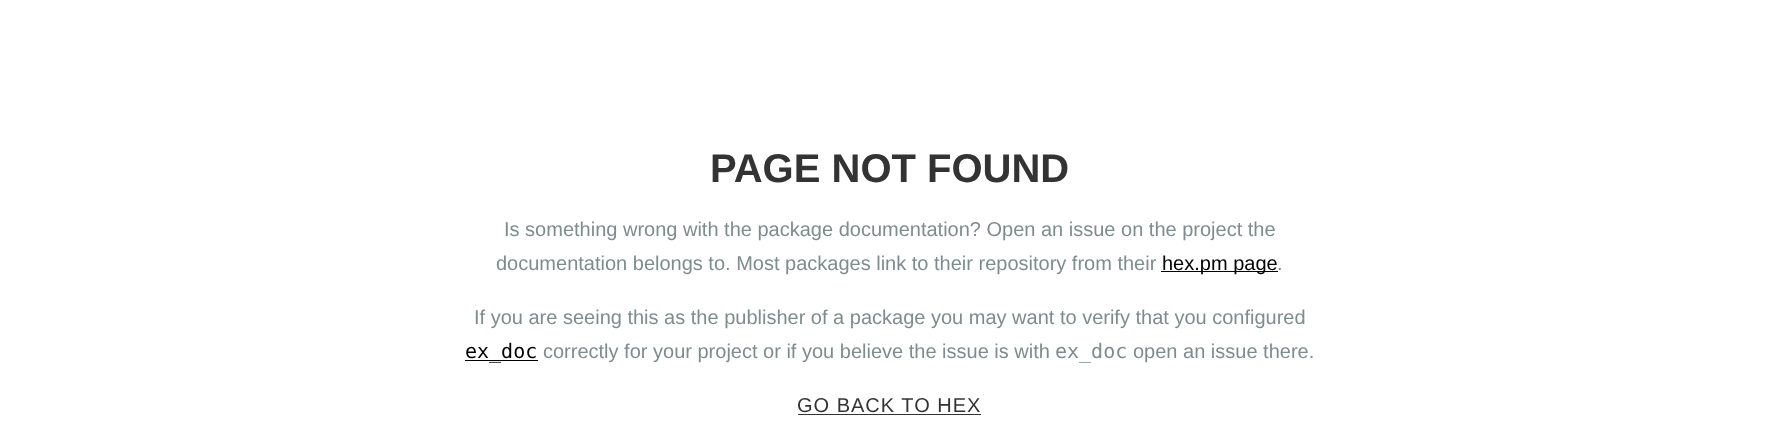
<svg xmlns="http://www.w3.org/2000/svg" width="1778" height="442">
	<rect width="100%" height="100%" fill="#FFFFFF" />
	<text x="710" y="182" font-family="Liberation Sans" font-size="40" font-weight="700" fill="#333333">PAGE NOT FOUND</text>
	<g font-family="Liberation Sans" font-size="20" fill="#7F8C8D">
		<text x="504" y="236">Is something wrong with the package documentation? Open an issue on the project the</text>
		<text x="496" y="270">documentation belongs to. Most packages link to their repository from their</text>
	</g>
	<rect x="1161" y="271" width="117" height="1" fill="#000000" />
	<text x="1162" y="270" font-family="Liberation Sans" font-size="20" fill="#000000">hex.pm page</text>
	<g font-family="Liberation Sans" font-size="20" fill="#7F8C8D">
		<text x="1277" y="270">.</text>
		<text x="474" y="324">If you are seeing this as the publisher of a package you may want to verify that you configured</text>
	</g>
	<rect x="465" y="360" width="73" height="1" fill="#000000" />
	<text x="465" y="358" font-family="DejaVu Sans Mono" font-size="20" fill="#000000">ex_doc</text>
	<text x="543" y="358" font-family="Liberation Sans" font-size="20" fill="#7F8C8D">correctly for your project or if you believe the issue is with</text>
	<text x="1055" y="358" font-family="DejaVu Sans Mono" font-size="20" fill="#7F8C8D">ex_doc</text>
	<text x="1133" y="358" font-family="Liberation Sans" font-size="20" fill="#7F8C8D">open an issue there.</text>
	<text x="797" y="412" font-family="Liberation Sans" font-size="20" letter-spacing="1" fill="#333333">GO BACK TO HEX</text>
	<rect x="798" y="414" width="183" height="1" fill="#333333" />
</svg>
